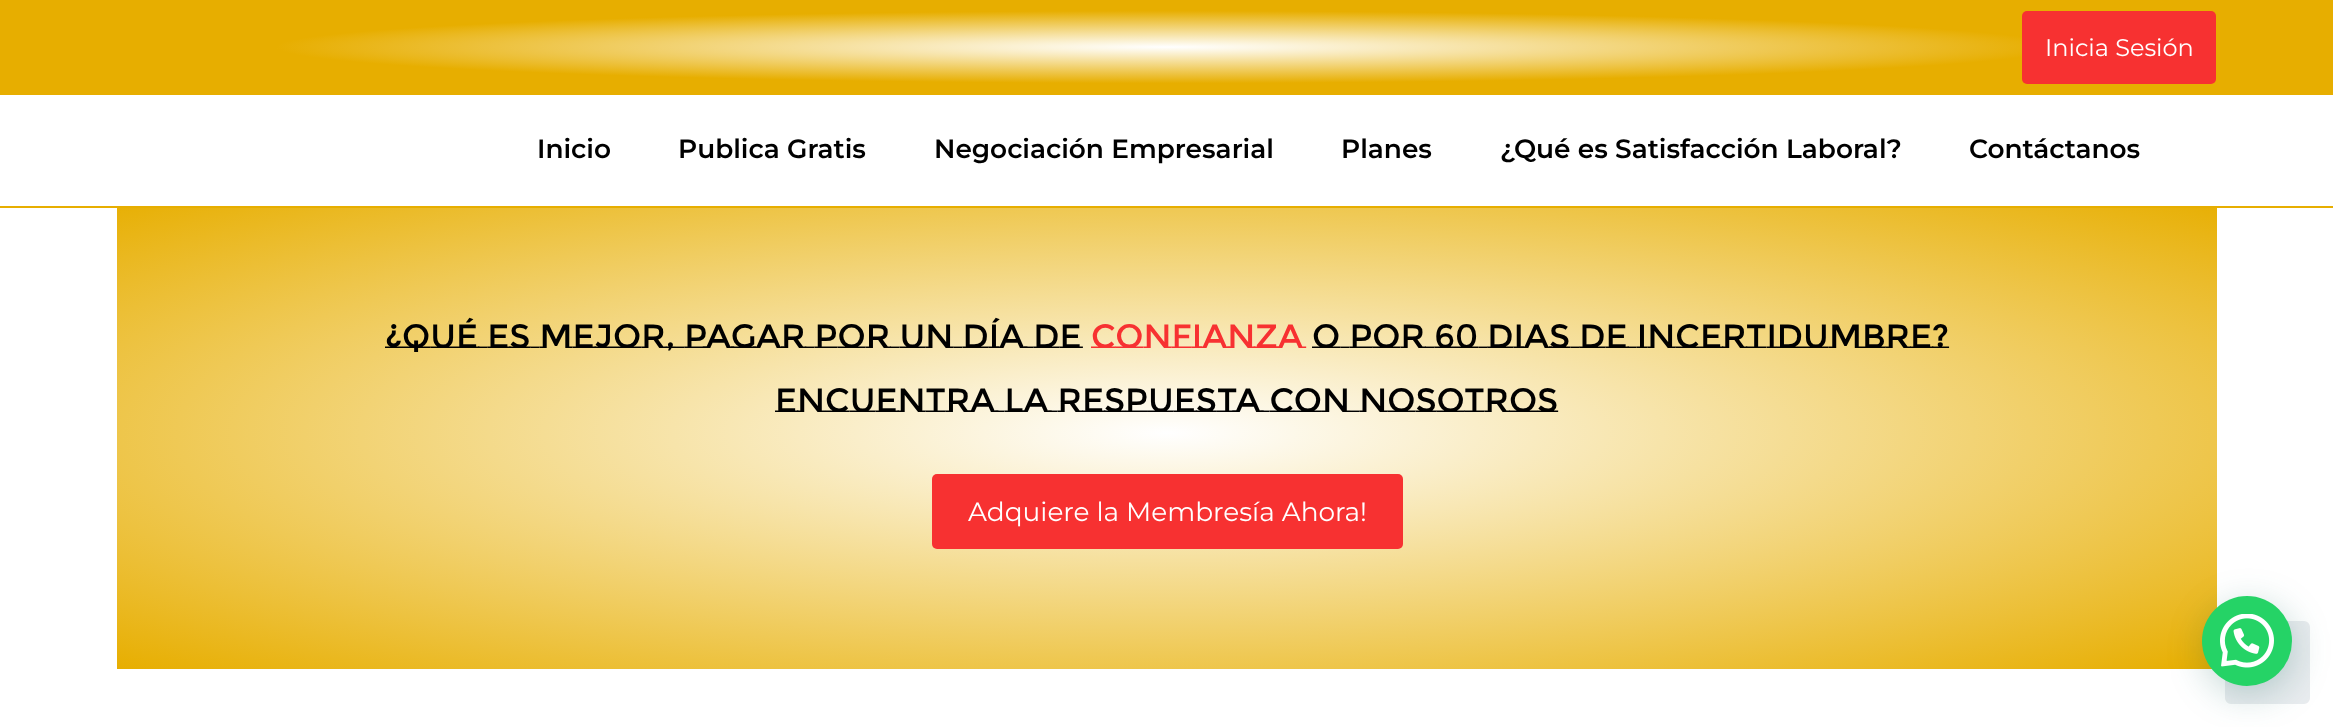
<svg xmlns="http://www.w3.org/2000/svg" width="2333" height="727">
	<defs>
		<radialGradient id="g1" gradientUnits="userSpaceOnUse" cx="0" cy="0" r="1" gradientTransform="matrix(1650 0 0 67 1167 47)"><stop offset="0" stop-color="#FFFFFF" /><stop offset="0.54" stop-color="#E7AE00" /></radialGradient>
		<radialGradient id="g2" gradientUnits="userSpaceOnUse" cx="0" cy="0" r="1" gradientTransform="matrix(1485 0 0 334 1167 433)"><stop offset="0" stop-color="#FFFFFF" /><stop offset="1" stop-color="#E7AE00" /></radialGradient>
	</defs>
	<rect width="100%" height="100%" fill="#FFFFFF" />
	<rect x="0" y="0" width="2333" height="95" fill="url(#g1)" />
	<rect x="2022" y="11" width="194" height="73" rx="5" fill="#F73131" />
	<text x="2045" y="56" font-family="Montserrat" font-size="24" font-weight="100" fill="#FFFFFF">Inicia Sesión</text>
	<rect x="0" y="206" width="2333" height="2" fill="#E7AE00" />
	<g font-family="Montserrat" font-size="26.4" font-weight="600" fill="#000000">
		<text x="537" y="158">Inicio</text>
		<text x="678" y="158">Publica Gratis</text>
		<text x="934" y="158">Negociación Empresarial</text>
		<text x="1341" y="158">Planes</text>
		<text x="1500" y="158">¿Qué es Satisfacción Laboral?</text>
		<text x="1969" y="158">Contáctanos</text>
	</g>
	<rect x="117" y="208" width="2100" height="461" fill="url(#g2)" />
	<text x="385" y="348" font-family="Montserrat Subrayada" font-size="33.6" fill="#000000">¿QUÉ ES MEJOR, PAGAR POR UN DÍA DE</text>
	<text x="1091" y="348" font-family="Montserrat Subrayada" font-size="33.6" fill="#F73131">CONFIANZA</text>
	<g font-family="Montserrat Subrayada" font-size="33.6" fill="#000000">
		<text x="1312" y="348">O POR 60 DIAS DE INCERTIDUMBRE?</text>
		<text x="775" y="412">ENCUENTRA LA RESPUESTA CON NOSOTROS</text>
	</g>
	<rect x="932" y="474" width="471" height="75" rx="5" fill="#F73131" />
	<text x="968" y="521" font-family="Montserrat" font-size="26.4" font-weight="100" fill="#FFFFFF">Adquiere la Membresía Ahora!</text>
	<rect x="2226" y="622" width="83" height="81" rx="5" fill="#E9ECEF" stroke="#E9ECEF" stroke-width="2" />
	<rect x="2204" y="605" width="90" height="90" rx="45" fill="#075E54" fill-opacity="0.24" filter="blur(18px)" />
	<circle cx="2247" cy="641" r="45" fill="#25D366" />
	<image x="2220" y="614" width="54" height="54" href="assets/img1.png" />
</svg>
